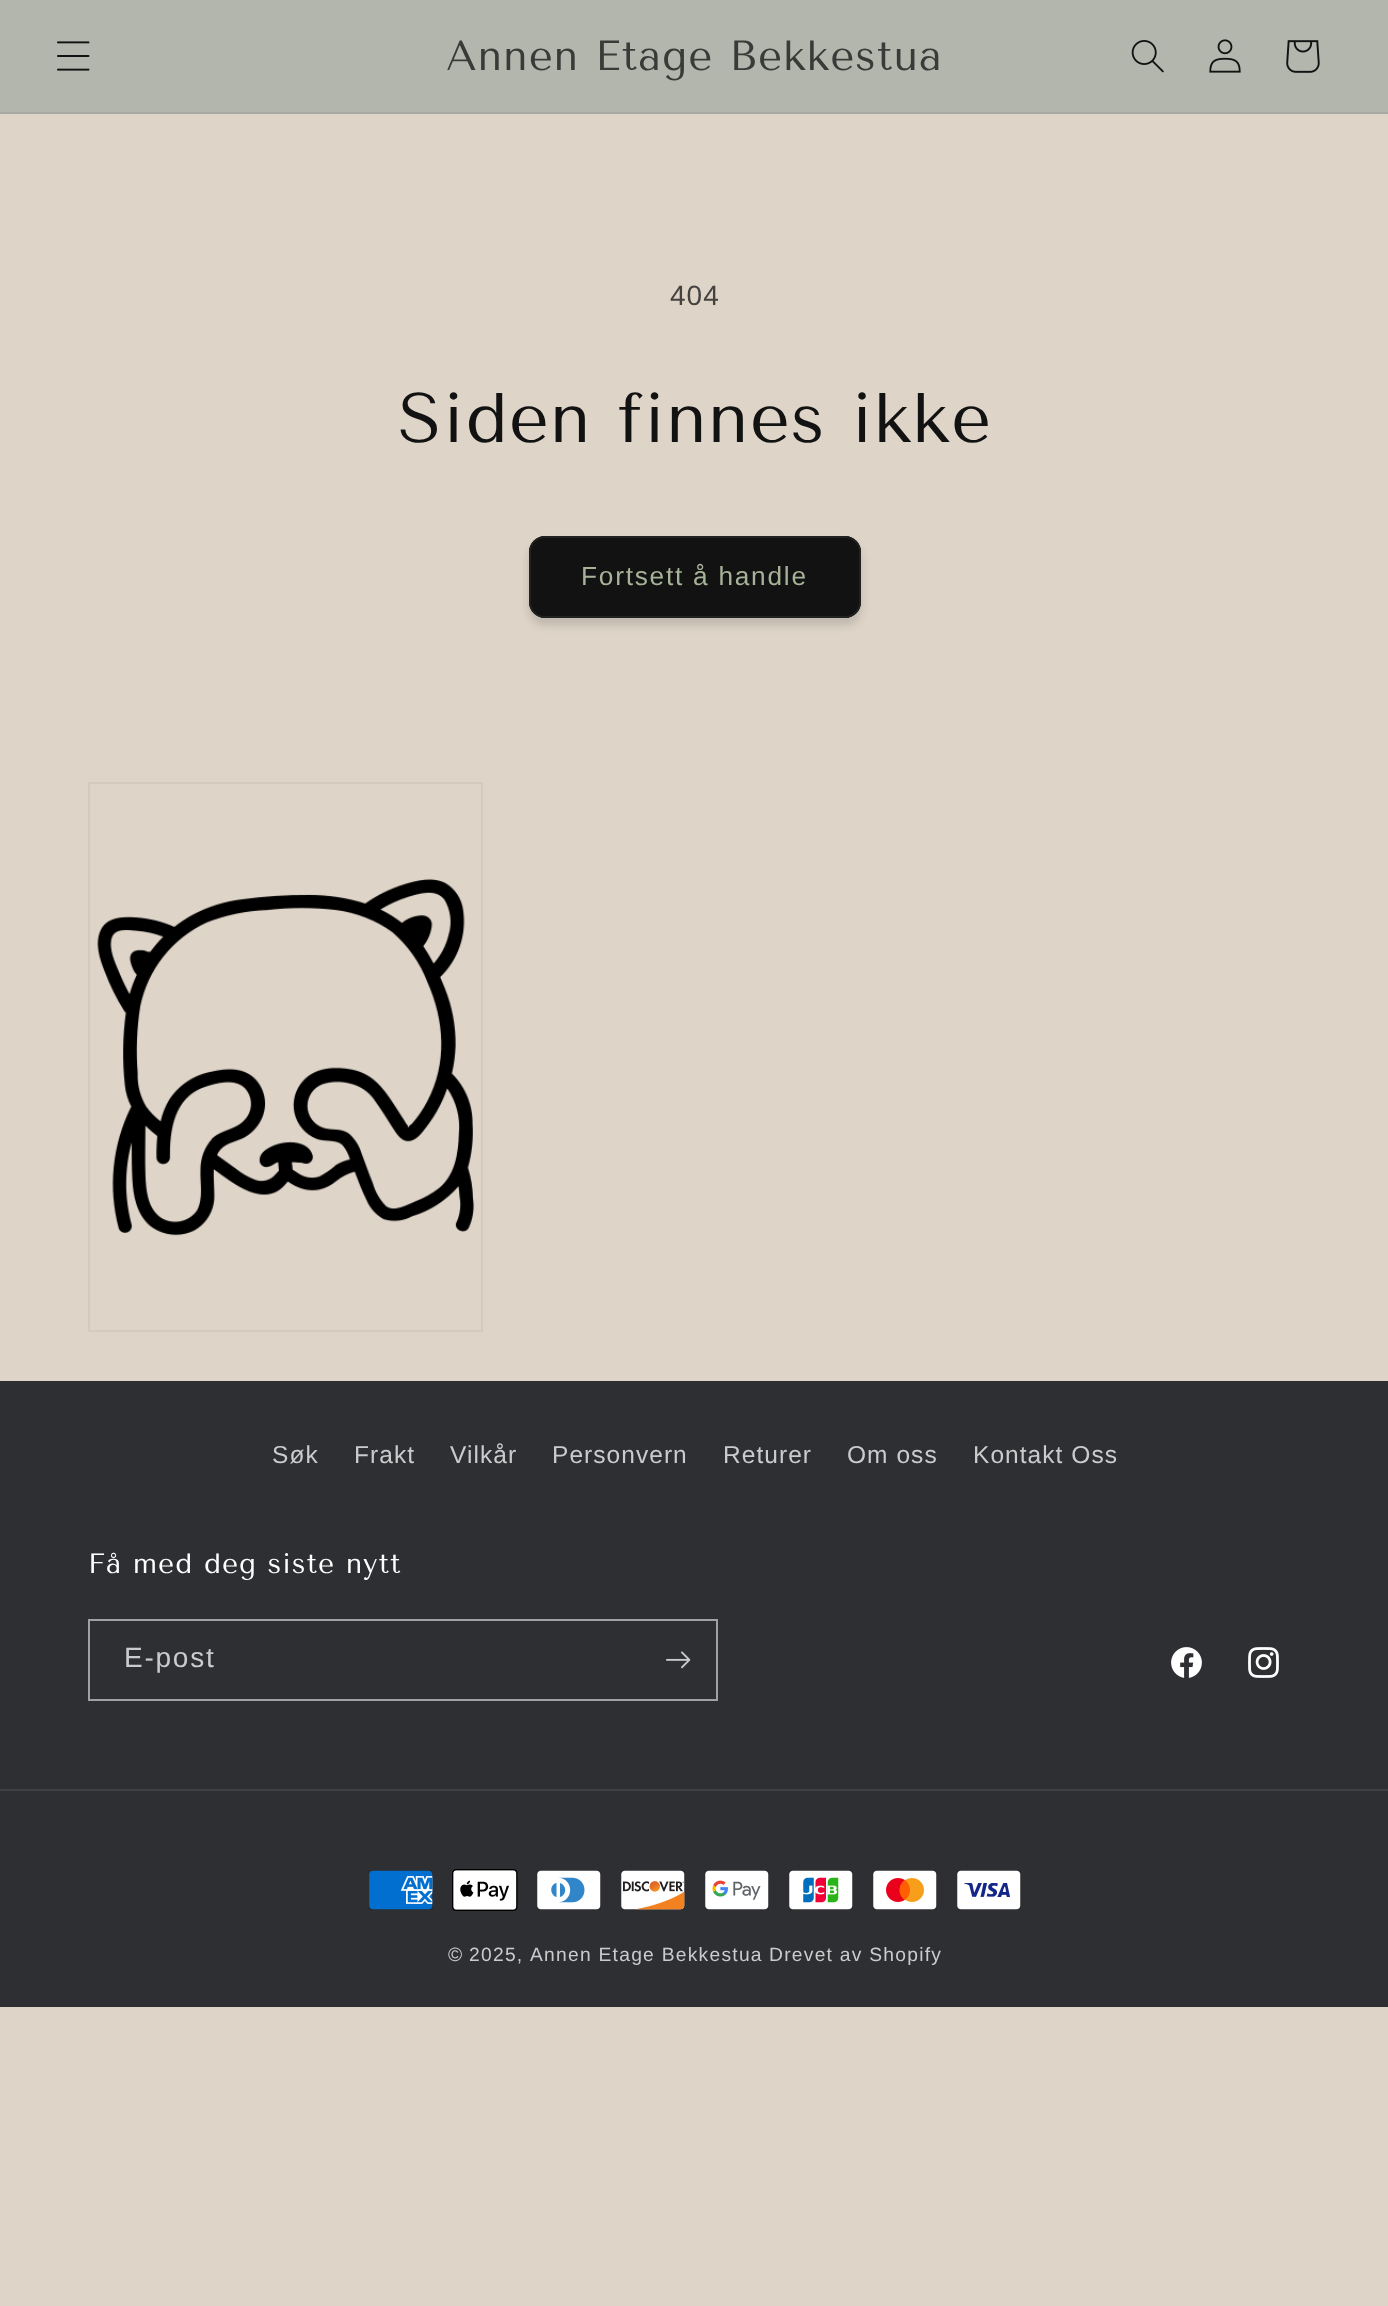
<svg xmlns="http://www.w3.org/2000/svg" width="1388" height="2306">
	<rect width="100%" height="100%" fill="#DED4C8" />
	<rect x="0" y="0" width="1388" height="112" fill="#B2B6AD" />
	<rect x="0" y="112" width="1388" height="2" fill="#A5A9A1" />
	<image x="57" y="41" width="33" height="30" href="assets/img1.png" />
	<text x="446" y="70" font-family="Tenor Sans" font-size="42" letter-spacing="1.05" fill="#3A3B39">Annen Etage Bekkestua</text>
	<image x="1131" y="40" width="33" height="33" href="assets/img2.png" />
	<image x="1209" y="39" width="32" height="34" href="assets/img3.png" />
	<image x="1286" y="40" width="34" height="33" href="assets/img4.png" />
	<text x="670" y="305" font-family="Liberation Sans" font-size="28" letter-spacing="1.05" fill="#454340">404</text>
	<text x="398" y="442" font-family="Tenor Sans" font-size="70" letter-spacing="1.05" fill="#121212">Siden finnes ikke</text>
	<rect x="529" y="543" width="332" height="82" rx="16" fill="#121212" fill-opacity="0.15" filter="blur(4.5px)" />
	<rect x="529" y="536" width="332" height="82" rx="16" fill="#121212" />
	<rect x="530" y="537" width="330" height="80" rx="15" fill="none" stroke="#121212" stroke-width="2" />
	<rect x="530" y="537" width="330" height="80" rx="15" fill="none" stroke="#A7B398" stroke-opacity="0.1" stroke-width="2" />
	<text x="581" y="585" font-family="Liberation Sans" font-size="26.25" letter-spacing="1.75" fill="#A7B398">Fortsett å handle</text>
	<rect x="89" y="783" width="393" height="548" fill="none" stroke="#D4CABF" stroke-width="2" />
	<image x="97" y="878" width="378" height="358" href="assets/img5.png" />
	<rect x="0" y="1381" width="1388" height="626" fill="#2E2F33" />
	<g font-family="Liberation Sans" font-size="24.5" letter-spacing="1.05" fill="#CBCBCC">
		<text x="272" y="1463">Søk</text>
		<text x="354" y="1463">Frakt</text>
		<text x="450" y="1463">Vilkår</text>
		<text x="552" y="1463">Personvern</text>
		<text x="723" y="1463">Returer</text>
		<text x="847" y="1463">Om oss</text>
		<text x="973" y="1463">Kontakt Oss</text>
	</g>
	<text x="88" y="1573" font-family="Tenor Sans" font-size="28" letter-spacing="1.05" fill="#FFFFFF">Få med deg siste nytt</text>
	<rect x="89" y="1620" width="628" height="80" fill="none" stroke="#A1A1A3" stroke-width="2" />
	<text x="124" y="1667" font-family="Liberation Sans" font-size="28" letter-spacing="1.75" fill="#CBCBCC">E-post</text>
	<image x="666" y="1651" width="25" height="18" href="assets/img6.png" />
	<image x="1171" y="1647" width="31" height="31" href="assets/img7.png" />
	<image x="1248" y="1647" width="31" height="31" href="assets/img8.png" />
	<rect x="0" y="1789" width="1388" height="2" fill="#3F4043" />
	<image x="369" y="1870" width="64" height="40" href="assets/img9.png" />
	<image x="452" y="1869" width="66" height="42" href="assets/img10.png" />
	<image x="537" y="1870" width="64" height="40" href="assets/img11.png" />
	<image x="621" y="1870" width="64" height="40" href="assets/img12.png" />
	<image x="705" y="1870" width="64" height="40" href="assets/img13.png" />
	<image x="789" y="1870" width="64" height="40" href="assets/img14.png" />
	<image x="873" y="1870" width="64" height="40" href="assets/img15.png" />
	<image x="957" y="1870" width="64" height="40" href="assets/img16.png" />
	<g font-family="Liberation Sans" font-size="19.25" letter-spacing="1.25" fill="#CBCBCC">
		<text x="448" y="1961" word-spacing="-1">© 2025,</text>
		<text x="530" y="1961">Annen Etage Bekkestua</text>
		<text x="769" y="1961">Drevet av Shopify</text>
	</g>
</svg>
